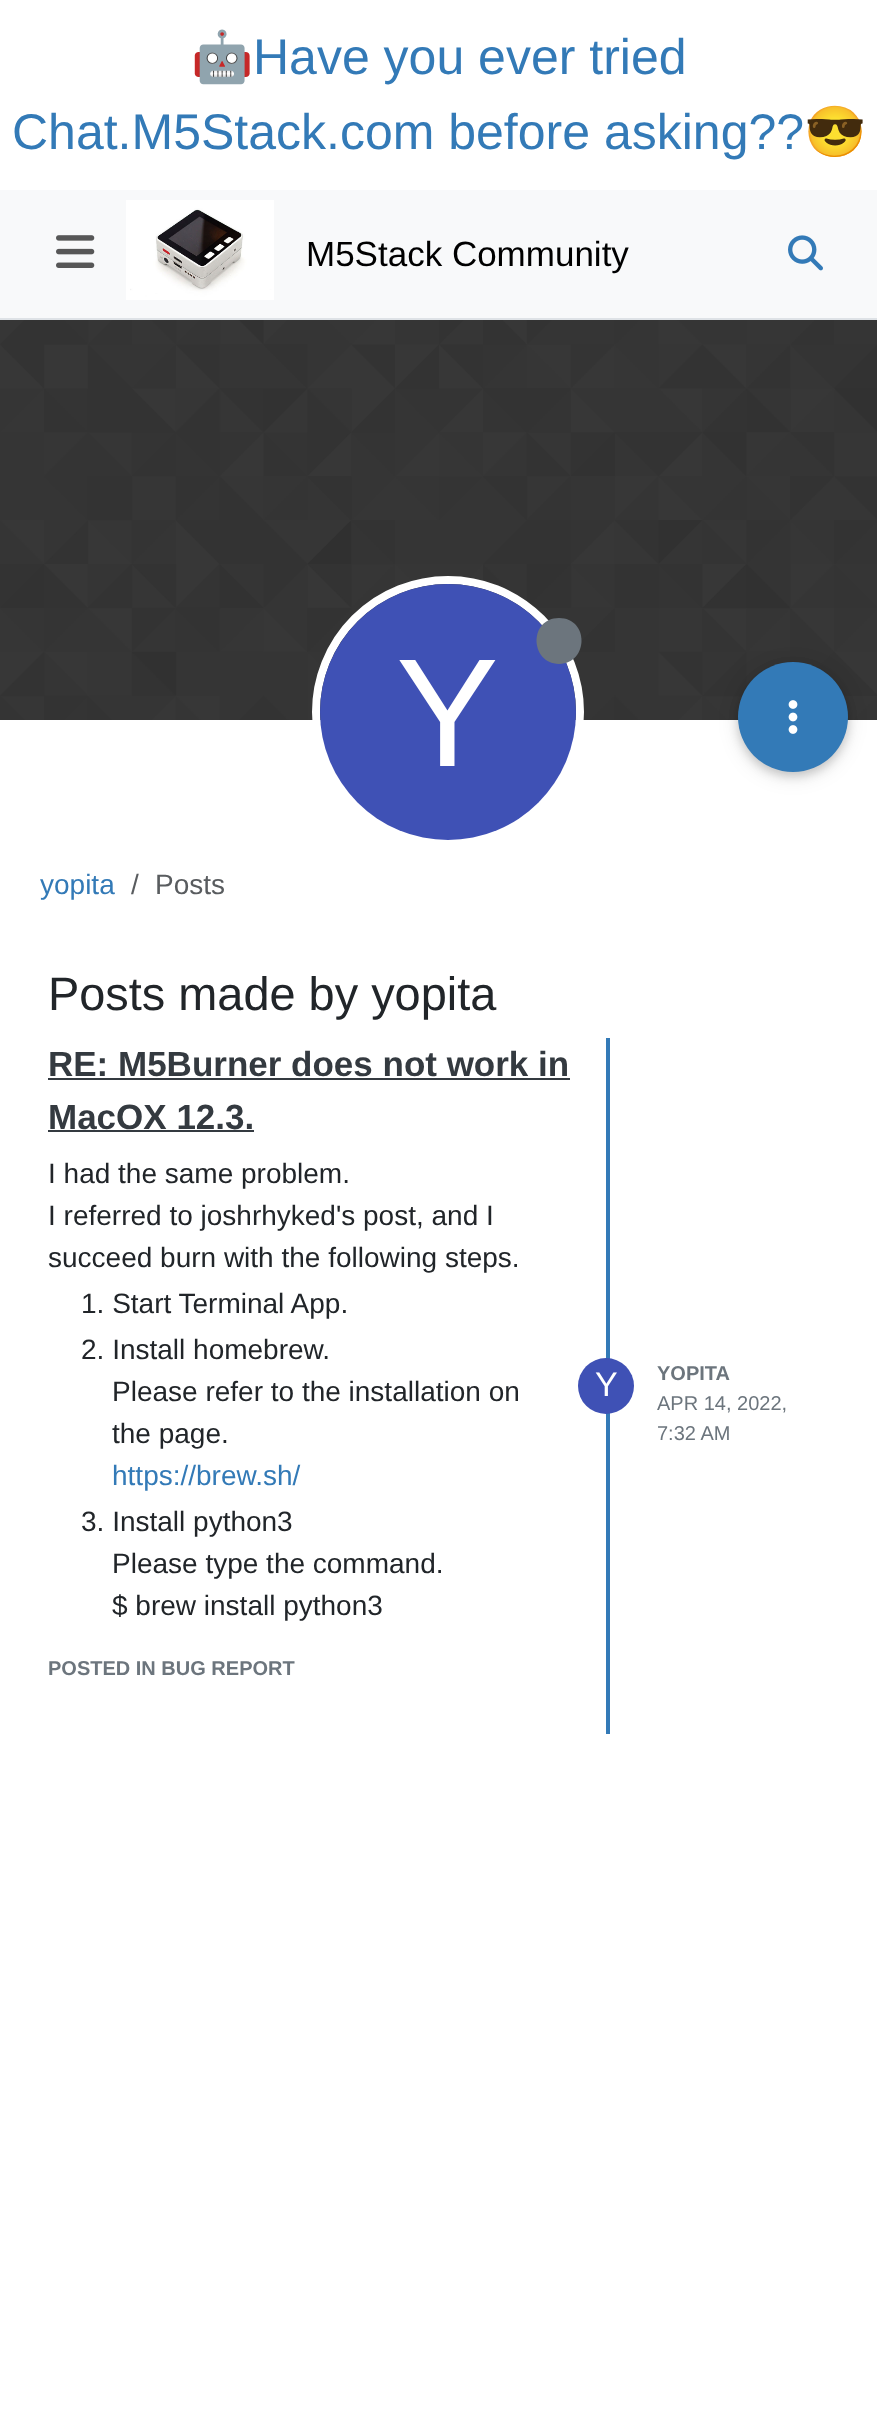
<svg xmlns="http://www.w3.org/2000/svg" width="877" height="2431">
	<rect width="100%" height="100%" fill="#FFFFFF" />
	<text x="191" y="74" font-family="Noto Color Emoji" font-size="50" fill="#337AB7">🤖</text>
	<g font-family="Liberation Sans" font-size="50" fill="#337AB7">
		<text x="253" y="74">Have you ever tried</text>
		<text x="12" y="149">Chat.M5Stack.com before asking??</text>
	</g>
	<text x="804" y="149" font-family="Noto Color Emoji" font-size="50" fill="#337AB7">😎</text>
	<rect x="0" y="190" width="877" height="128" fill="#F8F9FA" />
	<rect x="0" y="318" width="877" height="2" fill="#DEE2E6" />
	<image x="56" y="235" width="39" height="33" href="assets/img1.png" />
	<image x="126" y="200" width="148" height="100" href="assets/img2.png" />
	<text x="306" y="266" font-family="Liberation Sans" font-size="35" fill="#000000">M5Stack Community</text>
	<image x="788" y="235" width="35" height="36" href="assets/img3.png" />
	<image x="0" y="320" width="877" height="400" href="assets/img4.png" />
	<circle cx="448" cy="712" r="132" fill="none" stroke="#FFFFFF" stroke-width="8" />
	<circle cx="448" cy="712" r="128" fill="#3F51B5" />
	<path d="M559 664C589 663 589 618 559 618C529 618 529 663 559 664Z" fill="#6C757D" />
	<text x="396" y="766" font-family="Liberation Sans" font-size="154" fill="#FFFFFF">Y</text>
	<rect x="738" y="666" width="110" height="110" rx="55" fill="#000000" fill-opacity="0.12" filter="blur(10px)" />
	<rect x="738" y="666" width="110" height="110" rx="55" fill="#000000" fill-opacity="0.16" filter="blur(5px)" />
	<circle cx="793" cy="717" r="55" fill="#337AB7" />
	<image x="788" y="700" width="10" height="34" href="assets/img5.png" />
	<text x="40" y="894" font-family="Liberation Sans" font-size="28" fill="#337AB7">yopita</text>
	<g font-family="Liberation Sans" font-size="28" fill="#595C5F">
		<text x="131" y="894">/</text>
		<text x="155" y="894">Posts</text>
	</g>
	<text x="48" y="1010" font-family="Liberation Sans" font-size="46.9" fill="#212529">Posts made by yopita</text>
	<rect x="606" y="1038" width="4" height="696" fill="#337AB7" />
	<text x="48" y="1076" font-family="Liberation Sans" font-size="35" font-weight="700" fill="#343A40">RE: M5Burner does not work in</text>
	<rect x="48" y="1078" width="522" height="2" fill="#343A40" />
	<text x="48" y="1129" font-family="Liberation Sans" font-size="35" font-weight="700" fill="#343A40">MacOX 12.3.</text>
	<rect x="48" y="1130" width="206" height="2" fill="#343A40" />
	<g font-family="Liberation Sans" font-size="28" fill="#212529">
		<text x="48" y="1183">I had the same problem.</text>
		<text x="48" y="1225">I referred to joshrhyked's post, and I</text>
		<text x="48" y="1267">succeed burn with the following steps.</text>
		<text x="81" y="1313">1. Start Terminal App.</text>
		<text x="81" y="1359">2. Install homebrew.</text>
		<text x="112" y="1401">Please refer to the installation on</text>
		<text x="112" y="1443">the page.</text>
	</g>
	<text x="112" y="1485" font-family="Liberation Sans" font-size="28" fill="#337AB7">https://brew.sh/</text>
	<g font-family="Liberation Sans" font-size="28" fill="#212529">
		<text x="81" y="1531">3. Install python3</text>
		<text x="112" y="1573">Please type the command.</text>
		<text x="112" y="1615">$ brew install python3</text>
	</g>
	<circle cx="606" cy="1386" r="28" fill="#3F51B5" />
	<text x="595" y="1396" font-family="Liberation Sans" font-size="34" fill="#FFFFFF">Y</text>
	<text x="657" y="1380" font-family="Liberation Sans" font-size="20" font-weight="700" fill="#6C757D">YOPITA</text>
	<g font-family="Liberation Sans" font-size="20" fill="#6C757D">
		<text x="657" y="1410">APR 14, 2022,</text>
		<text x="657" y="1440">7:32 AM</text>
	</g>
	<text x="48" y="1675" font-family="Liberation Sans" font-size="20" font-weight="700" fill="#6C757D">POSTED IN BUG REPORT</text>
</svg>
